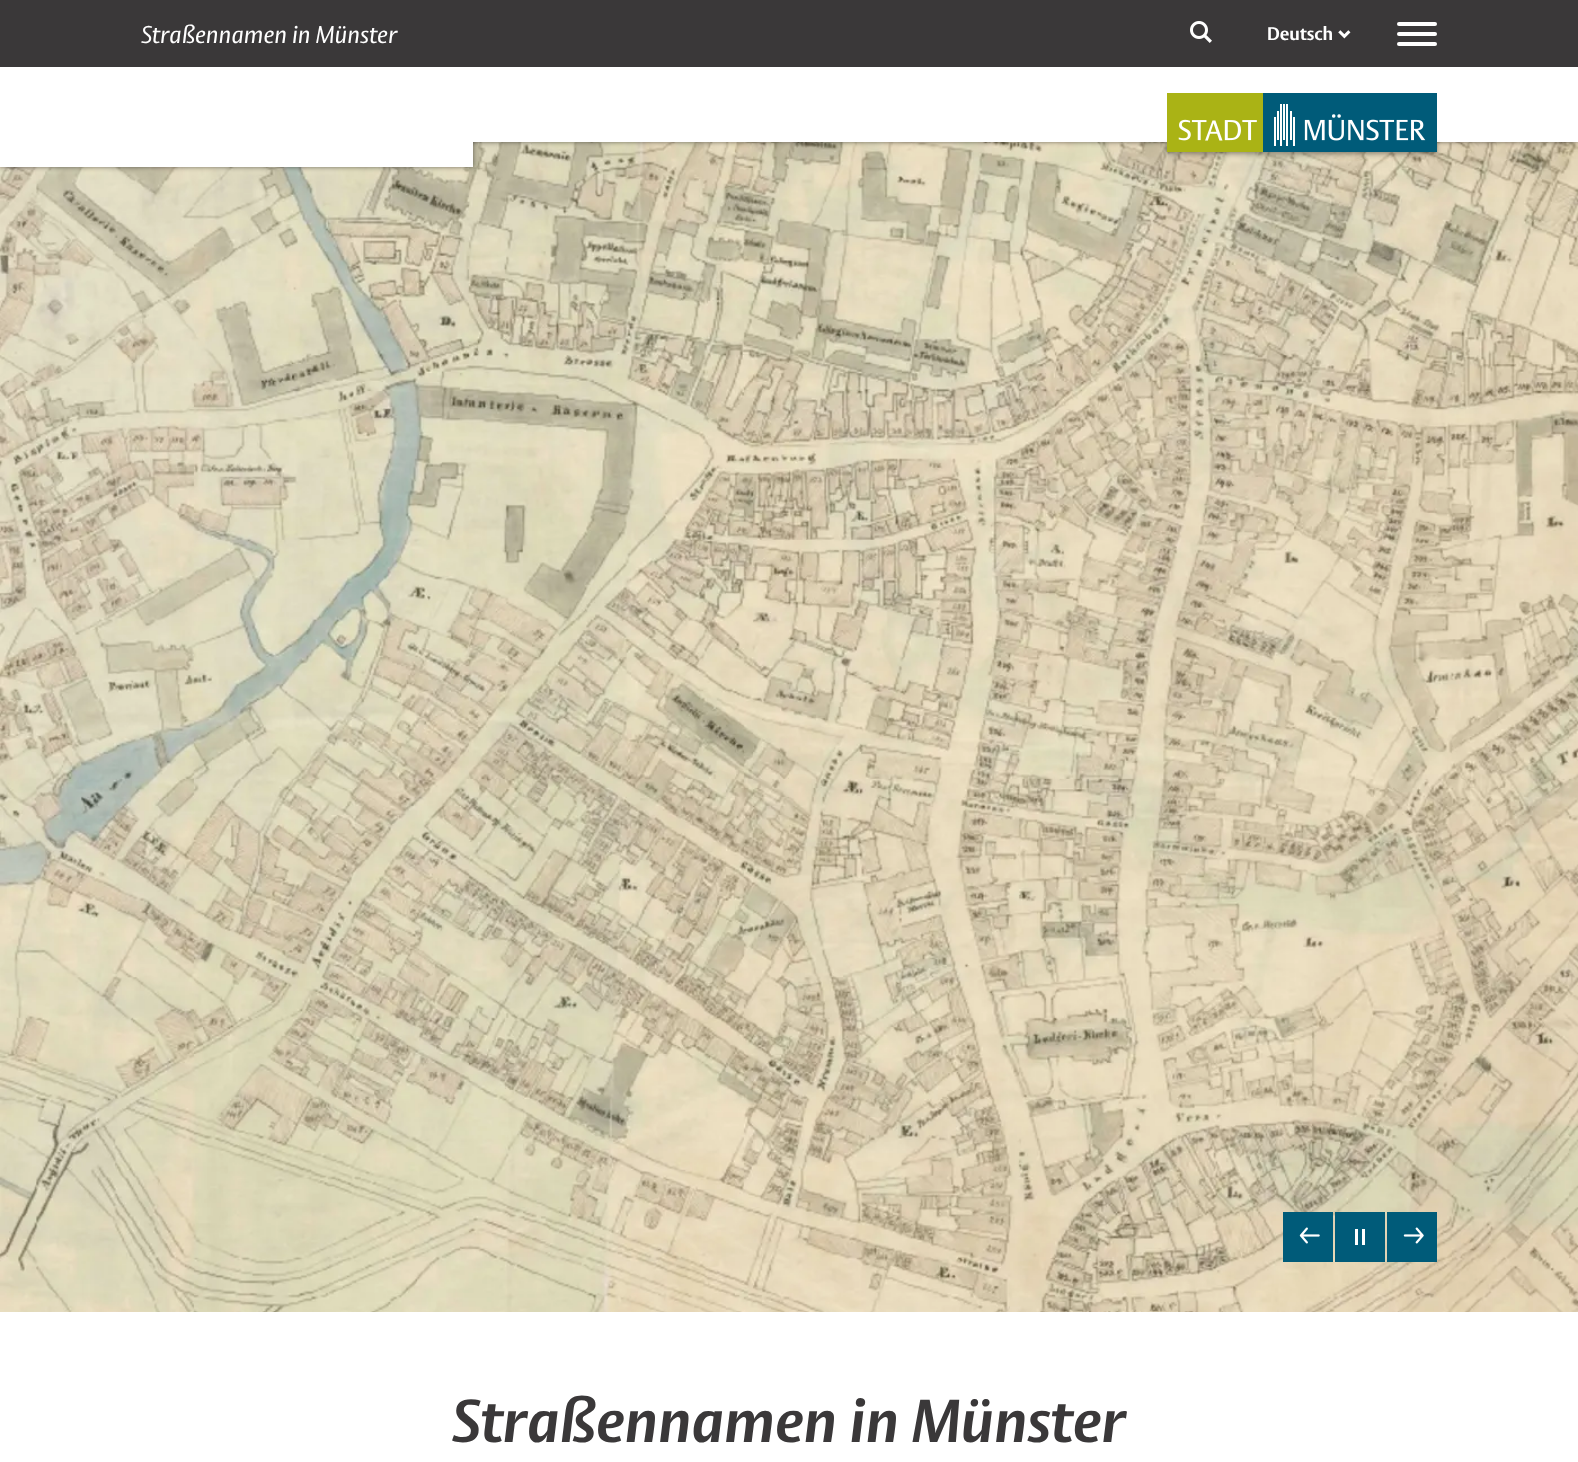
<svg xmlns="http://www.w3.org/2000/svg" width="1578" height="1462">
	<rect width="100%" height="100%" fill="#FFFFFF" />
	<image x="0" y="142" width="1578" height="1170" href="assets/img4.png" />
	<rect x="0" y="67" width="1578" height="75" fill="#000000" fill-opacity="0.5" filter="blur(2.5px)" />
	<rect x="0" y="67" width="473" height="100" fill="#000000" fill-opacity="0.5" filter="blur(2.5px)" />
	<rect x="0" y="0" width="1578" height="67" fill="#3A3839" />
	<text x="141" y="43" font-family="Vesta" font-size="24" font-style="italic" fill="#FFFFFF">Straßennamen in Münster</text>
	<image x="1190" y="21" width="22" height="22" href="assets/img1.png" />
	<text x="1267" y="40" font-family="Vesta" font-size="18" font-weight="700" fill="#FFFFFF">Deutsch</text>
	<image x="1338" y="30" width="13" height="9" href="assets/img2.png" />
	<rect x="1397" y="32" width="40" height="4" rx="2" fill="#FFFFFF" />
	<rect x="1397" y="22" width="40" height="4" rx="2" fill="#FFFFFF" />
	<rect x="1397" y="42" width="40" height="4" rx="2" fill="#FFFFFF" />
	<rect x="0" y="67" width="1578" height="75" fill="#FFFFFF" />
	<rect x="0" y="142" width="473" height="25" fill="#FFFFFF" />
	<rect x="1168" y="145" width="268" height="8" fill="#000000" fill-opacity="0.5" filter="blur(3px)" />
	<image x="1167" y="93" width="270" height="59" href="assets/img3.png" />
	<rect x="1283" y="1212" width="50" height="50" fill="#005B79" />
	<image x="1299" y="1227" width="21" height="17" href="assets/img5.png" />
	<rect x="1335" y="1212" width="50" height="50" fill="#005B79" />
	<rect x="1355" y="1229" width="3" height="16" fill="#FFFFFF" />
	<rect x="1362" y="1229" width="3" height="16" fill="#FFFFFF" />
	<rect x="1387" y="1212" width="50" height="50" fill="#005B79" />
	<image x="1403" y="1227" width="21" height="17" href="assets/img6.png" />
	<text x="452" y="1442" font-family="Vesta" font-size="60" font-weight="700" font-style="italic" fill="#3A3839">Straßennamen in Münster</text>
</svg>
